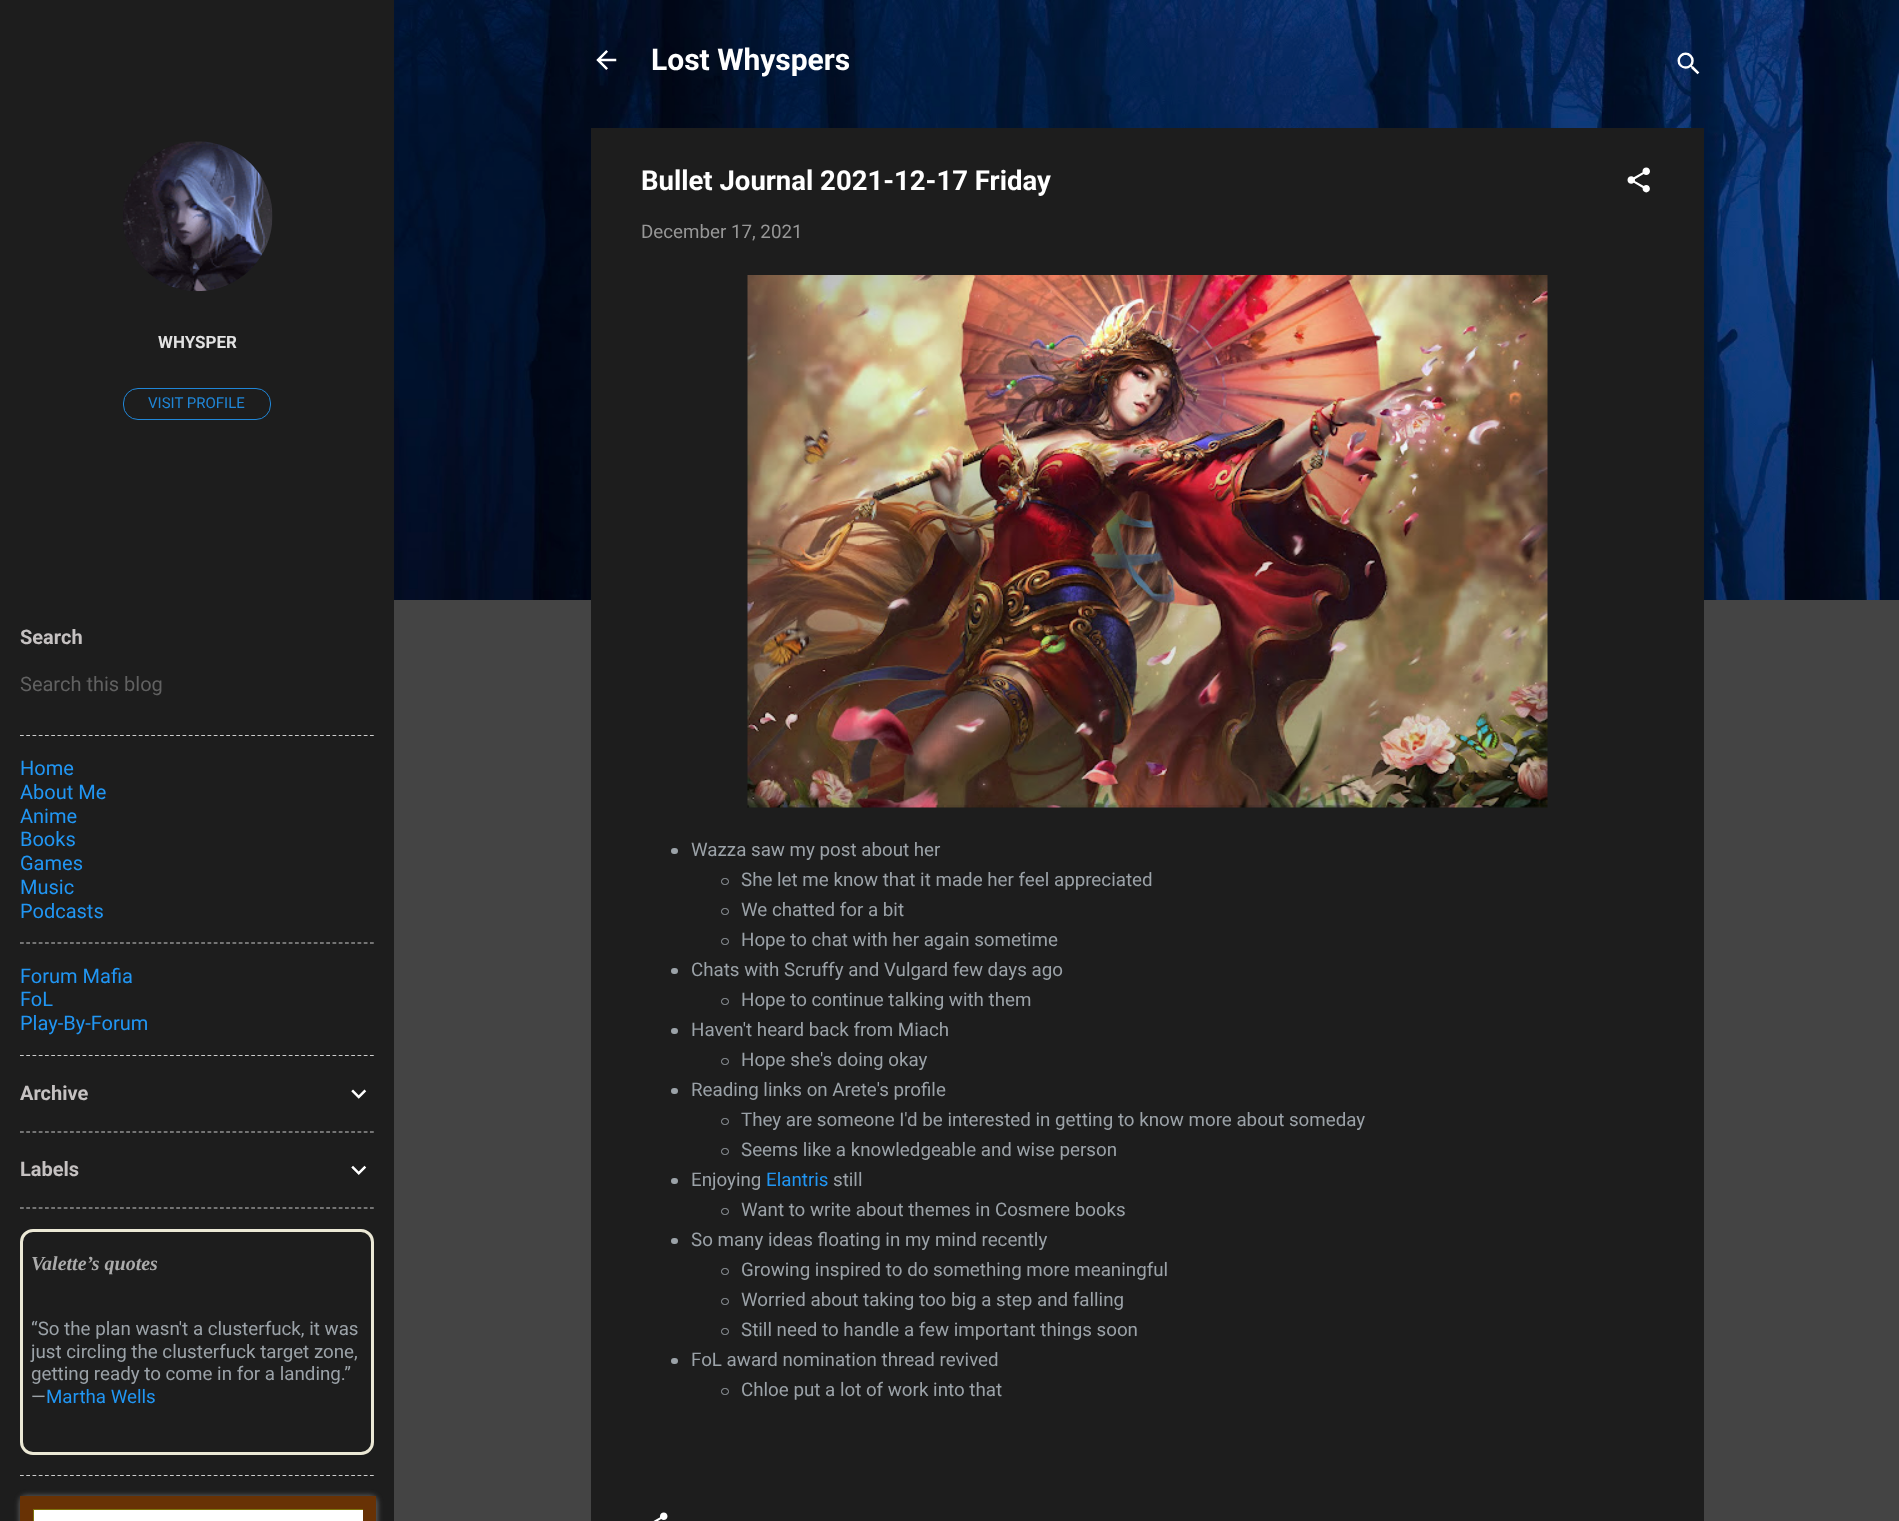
<svg xmlns="http://www.w3.org/2000/svg" width="1899" height="1521">
	<rect width="100%" height="100%" fill="#444444" />
	<rect x="0" y="0" width="394" height="1521" fill="#1D1D1D" />
	<image x="123" y="141" width="150" height="151" href="assets/img1.png" />
	<text x="158" y="348" font-family="Roboto" font-size="17" font-weight="700" fill="#E2E2E2">WHYSPER</text>
	<rect x="123.5" y="388.5" width="147" height="31" rx="14.5" fill="none" stroke="#2086D7" />
	<text x="148" y="408" font-family="Roboto" font-size="15" fill="#2086D7">VISIT PROFILE</text>
	<text x="20" y="644" font-family="Roboto" font-size="20" font-weight="700" fill="#C5C1C1">Search</text>
	<text x="20" y="691" font-family="Roboto" font-size="20" fill="#616161">Search this blog</text>
	<path d="M20 735.5H374" fill="none" stroke="#CCCCCC" stroke-width="1.2" stroke-dasharray="3.75 2.5" />
	<g font-family="Roboto" font-size="20" fill="#2196F3">
		<text x="20" y="775">Home</text>
		<text x="20" y="799">About Me</text>
		<text x="20" y="823">Anime</text>
		<text x="20" y="846">Books</text>
		<text x="20" y="870">Games</text>
		<text x="20" y="894">Music</text>
		<text x="20" y="918">Podcasts</text>
	</g>
	<path d="M20 943H374" fill="none" stroke="#CCCCCC" stroke-width="1.2" stroke-dasharray="3.75 2.5" />
	<g font-family="Roboto" font-size="20" fill="#2196F3">
		<text x="20" y="983">Forum Mafia</text>
		<text x="20" y="1006">FoL</text>
		<text x="20" y="1030">Play-By-Forum</text>
	</g>
	<path d="M20 1055.5H374" fill="none" stroke="#CCCCCC" stroke-width="1.2" stroke-dasharray="3.75 2.5" />
	<text x="20" y="1100" font-family="Roboto" font-size="20" font-weight="700" fill="#C5C1C1">Archive</text>
	<image x="351" y="1089" width="16" height="10" href="assets/img2.png" />
	<path d="M20 1132H374" fill="none" stroke="#CCCCCC" stroke-width="1.2" stroke-dasharray="3.75 2.5" />
	<text x="20" y="1176" font-family="Roboto" font-size="20" font-weight="700" fill="#C5C1C1">Labels</text>
	<image x="351" y="1165" width="16" height="10" href="assets/img3.png" />
	<path d="M20 1208H374" fill="none" stroke="#CCCCCC" stroke-width="1.2" stroke-dasharray="3.75 2.5" />
	<rect x="21.5" y="1230.5" width="351" height="223" rx="11.5" fill="none" stroke="#EBE8D5" stroke-width="3" />
	<text x="31" y="1270" font-family="Liberation Serif" font-size="20" font-weight="700" font-style="italic" fill="#AAAAAA">Valette’s quotes</text>
	<g font-family="Roboto" font-size="18.75" fill="#9BA2A8">
		<text x="31" y="1335">“So the plan wasn't a clusterfuck, it was</text>
		<text x="31" y="1358">just circling the clusterfuck target zone,</text>
		<text x="31" y="1380">getting ready to come in for a landing.”</text>
		<text x="31" y="1403">—</text>
	</g>
	<text x="46" y="1403" font-family="Roboto" font-size="18.75" fill="#2196F3">Martha Wells</text>
	<path d="M20 1475.5H374" fill="none" stroke="#CCCCCC" stroke-width="1.2" stroke-dasharray="3.75 2.5" />
	<rect x="19" y="1495" width="359" height="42" rx="8" fill="#595959" filter="blur(2.5px)" />
	<rect x="20" y="1496" width="356" height="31" rx="6" fill="#FFFFFF" />
	<rect x="33.5" y="1509.5" width="330" height="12" fill="none" stroke="#7D730B" />
	<rect x="26.5" y="1502.5" width="343" height="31" fill="none" stroke="#683205" stroke-width="13" />
	<image x="394" y="0" width="1505" height="600" href="assets/img4.png" />
	<image x="596" y="50" width="21" height="20" href="assets/img5.png" />
	<text x="651" y="70" font-family="Roboto" font-size="30" font-weight="700" fill="#FFFFFF">Lost Whyspers</text>
	<image x="1677" y="52" width="23" height="23" href="assets/img6.png" />
	<rect x="591" y="128" width="1113" height="1393" fill="#1D1D1D" />
	<text x="641" y="190" font-family="Roboto" font-size="27.5" font-weight="700" fill="#FFFFFF">Bullet Journal 2021-12-17 Friday</text>
	<image x="1627" y="167" width="23" height="26" href="assets/img7.png" />
	<text x="641" y="238" font-family="Roboto" font-size="18.75" fill="#979797">December 17, 2021</text>
	<image x="747" y="275" width="801" height="533" href="assets/img8.png" />
	<rect x="671" y="848" width="7" height="6" rx="3" fill="#9BA2A8" />
	<text x="691" y="856" font-family="Roboto" font-size="18.75" fill="#9BA2A8">Wazza saw my post about her</text>
	<rect x="721.5" y="878.5" width="7" height="6" rx="3" fill="none" stroke="#9BA2A8" />
	<text x="741" y="886" font-family="Roboto" font-size="18.75" fill="#9BA2A8">She let me know that it made her feel appreciated</text>
	<rect x="721.5" y="908.5" width="7" height="6" rx="3" fill="none" stroke="#9BA2A8" />
	<text x="741" y="916" font-family="Roboto" font-size="18.75" fill="#9BA2A8">We chatted for a bit</text>
	<rect x="721.5" y="938.5" width="7" height="6" rx="3" fill="none" stroke="#9BA2A8" />
	<text x="741" y="946" font-family="Roboto" font-size="18.75" fill="#9BA2A8">Hope to chat with her again sometime</text>
	<rect x="671" y="968" width="7" height="6" rx="3" fill="#9BA2A8" />
	<text x="691" y="976" font-family="Roboto" font-size="18.75" fill="#9BA2A8">Chats with Scruffy and Vulgard few days ago</text>
	<rect x="721.5" y="998.5" width="7" height="6" rx="3" fill="none" stroke="#9BA2A8" />
	<text x="741" y="1006" font-family="Roboto" font-size="18.75" fill="#9BA2A8">Hope to continue talking with them</text>
	<rect x="671" y="1028" width="7" height="6" rx="3" fill="#9BA2A8" />
	<text x="691" y="1036" font-family="Roboto" font-size="18.75" fill="#9BA2A8">Haven't heard back from Miach</text>
	<rect x="721.5" y="1058.5" width="7" height="6" rx="3" fill="none" stroke="#9BA2A8" />
	<text x="741" y="1066" font-family="Roboto" font-size="18.75" fill="#9BA2A8">Hope she's doing okay</text>
	<rect x="671" y="1088" width="7" height="6" rx="3" fill="#9BA2A8" />
	<text x="691" y="1096" font-family="Roboto" font-size="18.75" fill="#9BA2A8">Reading links on Arete's profile</text>
	<rect x="721.5" y="1118.5" width="7" height="6" rx="3" fill="none" stroke="#9BA2A8" />
	<text x="741" y="1126" font-family="Roboto" font-size="18.75" fill="#9BA2A8">They are someone I'd be interested in getting to know more about someday</text>
	<rect x="721.5" y="1148.5" width="7" height="6" rx="3" fill="none" stroke="#9BA2A8" />
	<text x="741" y="1156" font-family="Roboto" font-size="18.75" fill="#9BA2A8">Seems like a knowledgeable and wise person</text>
	<rect x="671" y="1178" width="7" height="6" rx="3" fill="#9BA2A8" />
	<text x="691" y="1186" font-family="Roboto" font-size="18.75" fill="#9BA2A8">Enjoying</text>
	<text x="766" y="1186" font-family="Roboto" font-size="18.75" fill="#2196F3">Elantris</text>
	<text x="833" y="1186" font-family="Roboto" font-size="18.75" fill="#9BA2A8">still</text>
	<rect x="721.5" y="1208.5" width="7" height="6" rx="3" fill="none" stroke="#9BA2A8" />
	<text x="741" y="1216" font-family="Roboto" font-size="18.75" fill="#9BA2A8">Want to write about themes in Cosmere books</text>
	<rect x="671" y="1238" width="7" height="6" rx="3" fill="#9BA2A8" />
	<text x="691" y="1246" font-family="Roboto" font-size="18.75" fill="#9BA2A8">So many ideas floating in my mind recently</text>
	<rect x="721.5" y="1268.5" width="7" height="6" rx="3" fill="none" stroke="#9BA2A8" />
	<text x="741" y="1276" font-family="Roboto" font-size="18.75" fill="#9BA2A8">Growing inspired to do something more meaningful</text>
	<rect x="721.5" y="1298.5" width="7" height="6" rx="3" fill="none" stroke="#9BA2A8" />
	<text x="741" y="1306" font-family="Roboto" font-size="18.75" fill="#9BA2A8">Worried about taking too big a step and falling</text>
	<rect x="721.5" y="1328.5" width="7" height="6" rx="3" fill="none" stroke="#9BA2A8" />
	<text x="741" y="1336" font-family="Roboto" font-size="18.75" fill="#9BA2A8">Still need to handle a few important things soon</text>
	<rect x="671" y="1358" width="7" height="6" rx="3" fill="#9BA2A8" />
	<text x="691" y="1366" font-family="Roboto" font-size="18.75" fill="#9BA2A8">FoL award nomination thread revived</text>
	<rect x="721.5" y="1388.5" width="7" height="6" rx="3" fill="none" stroke="#9BA2A8" />
	<text x="741" y="1396" font-family="Roboto" font-size="18.75" fill="#9BA2A8">Chloe put a lot of work into that</text>
	<image x="653" y="1512" width="15" height="9" href="assets/img9.png" />
</svg>
